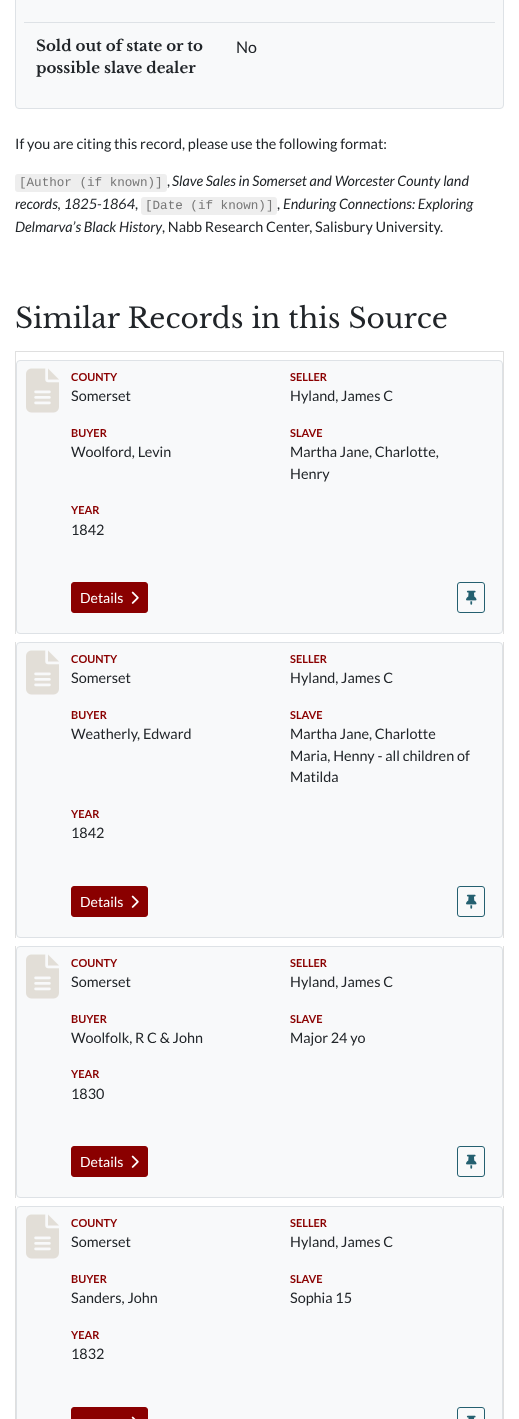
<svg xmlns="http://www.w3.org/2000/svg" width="519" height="1419">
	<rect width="100%" height="100%" fill="#FFFFFF" />
	<rect x="15.5" y="-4.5" width="488" height="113" rx="3.5" fill="#F8F9FA" stroke="#DEE2E6" />
	<g font-family="Libre Baskerville" font-size="15" font-weight="700" fill="#212529">
		<text x="36" y="51">Sold out of state or to</text>
		<text x="36" y="73">possible slave dealer</text>
	</g>
	<rect x="24" y="22" width="471" height="1" fill="#DEE2E6" />
	<text x="236" y="53" font-family="Lato" font-size="16" fill="#212529">No</text>
	<text x="15" y="149" font-family="Lato" font-size="14.4" fill="#212529">If you are citing this record, please use the following format:</text>
	<rect x="15" y="174" width="152" height="18" rx="3" fill="#EEEEEE" />
	<text x="19" y="186" font-family="Liberation Mono" font-size="12.6" fill="#777777">[Author (if known)]</text>
	<text x="167" y="186" font-family="Lato" font-size="14.4" fill="#212529">,</text>
	<g font-family="Lato" font-size="14.4" font-style="italic" fill="#212529">
		<text x="172" y="186">Slave Sales in Somerset and Worcester County land</text>
		<text x="15" y="209">records, 1825-1864</text>
	</g>
	<text x="135" y="209" font-family="Lato" font-size="14.4" fill="#212529">,</text>
	<rect x="141" y="197" width="136" height="18" rx="3" fill="#EEEEEE" />
	<text x="145" y="209" font-family="Liberation Mono" font-size="12.6" fill="#777777">[Date (if known)]</text>
	<text x="277" y="209" font-family="Lato" font-size="14.4" fill="#212529">,</text>
	<g font-family="Lato" font-size="14.4" font-style="italic" fill="#212529">
		<text x="283" y="209">Enduring Connections: Exploring</text>
		<text x="15" y="232">Delmarva’s Black History</text>
	</g>
	<text x="162" y="232" font-family="Lato" font-size="14.4" fill="#212529">, Nabb Research Center, Salisbury University.</text>
	<text x="15" y="328" font-family="Libre Baskerville" font-size="28" fill="#212529">Similar Records in this Source</text>
	<path d="M15 351H504L503 352H16Z" fill="#DFDFDF" />
	<path d="M504 351V634H503V352Z" fill="#000000" fill-opacity="0.12" />
	<path d="M15 634V351L16 352V634Z" fill="#000000" fill-opacity="0.12" />
	<rect x="16.5" y="360.5" width="486" height="273" rx="3.5" fill="#F8F9FA" stroke="#DEE2E6" />
	<image x="26" y="368" width="33" height="45" href="assets/img1.png" />
	<text x="71" y="381" font-family="Lato" font-size="11" font-weight="700" fill="#8A0000">COUNTY</text>
	<text x="71" y="401" font-family="Lato" font-size="14.4" fill="#212529">Somerset</text>
	<text x="290" y="381" font-family="Lato" font-size="11" font-weight="700" fill="#8A0000">SELLER</text>
	<text x="290" y="401" font-family="Lato" font-size="14.4" fill="#212529">Hyland, James C</text>
	<text x="71" y="437" font-family="Lato" font-size="11" font-weight="700" fill="#8A0000">BUYER</text>
	<text x="71" y="457" font-family="Lato" font-size="14.4" fill="#212529">Woolford, Levin</text>
	<text x="290" y="437" font-family="Lato" font-size="11" font-weight="700" fill="#8A0000">SLAVE</text>
	<g font-family="Lato" font-size="14.4" fill="#212529">
		<text x="290" y="457">Martha Jane, Charlotte,</text>
		<text x="290" y="479">Henry</text>
	</g>
	<text x="71" y="514" font-family="Lato" font-size="11" font-weight="700" fill="#8A0000">YEAR</text>
	<text x="71" y="535" font-family="Lato" font-size="14.4" fill="#212529">1842</text>
	<rect x="71.5" y="582.5" width="76" height="30" rx="2.5" fill="#8A0000" stroke="#8A0000" />
	<text x="80" y="603" font-family="Lato" font-size="14" fill="#FFFFFF">Details</text>
	<image x="131" y="591" width="8" height="13" href="assets/img2.png" />
	<rect x="457.5" y="582.5" width="27" height="30" rx="2.5" fill="none" stroke="#246070" />
	<image x="466" y="590" width="11" height="15" href="assets/img3.png" />
	<rect x="503" y="642" width="1" height="296" fill="#DFDFDF" />
	<rect x="15" y="642" width="1" height="296" fill="#DFDFDF" />
	<rect x="16.5" y="642.5" width="486" height="295" rx="3.5" fill="#F8F9FA" stroke="#DEE2E6" />
	<image x="26" y="650" width="33" height="45" href="assets/img1.png" />
	<text x="71" y="663" font-family="Lato" font-size="11" font-weight="700" fill="#8A0000">COUNTY</text>
	<text x="71" y="683" font-family="Lato" font-size="14.4" fill="#212529">Somerset</text>
	<text x="290" y="663" font-family="Lato" font-size="11" font-weight="700" fill="#8A0000">SELLER</text>
	<text x="290" y="683" font-family="Lato" font-size="14.4" fill="#212529">Hyland, James C</text>
	<text x="71" y="719" font-family="Lato" font-size="11" font-weight="700" fill="#8A0000">BUYER</text>
	<text x="71" y="739" font-family="Lato" font-size="14.4" fill="#212529">Weatherly, Edward</text>
	<text x="290" y="719" font-family="Lato" font-size="11" font-weight="700" fill="#8A0000">SLAVE</text>
	<g font-family="Lato" font-size="14.4" fill="#212529">
		<text x="290" y="739">Martha Jane, Charlotte</text>
		<text x="290" y="761">Maria, Henny - all children of</text>
		<text x="290" y="782">Matilda</text>
	</g>
	<text x="71" y="818" font-family="Lato" font-size="11" font-weight="700" fill="#8A0000">YEAR</text>
	<text x="71" y="838" font-family="Lato" font-size="14.4" fill="#212529">1842</text>
	<rect x="71.5" y="886.5" width="76" height="30" rx="2.5" fill="#8A0000" stroke="#8A0000" />
	<text x="80" y="907" font-family="Lato" font-size="14" fill="#FFFFFF">Details</text>
	<image x="131" y="895" width="8" height="13" href="assets/img2.png" />
	<rect x="457.5" y="886.5" width="27" height="30" rx="2.5" fill="none" stroke="#246070" />
	<image x="466" y="894" width="11" height="15" href="assets/img3.png" />
	<rect x="503" y="946" width="1" height="252" fill="#DFDFDF" />
	<rect x="15" y="946" width="1" height="252" fill="#DFDFDF" />
	<rect x="16.5" y="946.5" width="486" height="251" rx="3.5" fill="#F8F9FA" stroke="#DEE2E6" />
	<image x="26" y="954" width="33" height="45" href="assets/img1.png" />
	<text x="71" y="967" font-family="Lato" font-size="11" font-weight="700" fill="#8A0000">COUNTY</text>
	<text x="71" y="987" font-family="Lato" font-size="14.4" fill="#212529">Somerset</text>
	<text x="290" y="967" font-family="Lato" font-size="11" font-weight="700" fill="#8A0000">SELLER</text>
	<text x="290" y="987" font-family="Lato" font-size="14.4" fill="#212529">Hyland, James C</text>
	<text x="71" y="1023" font-family="Lato" font-size="11" font-weight="700" fill="#8A0000">BUYER</text>
	<text x="71" y="1043" font-family="Lato" font-size="14.4" fill="#212529">Woolfolk, R C &amp; John</text>
	<text x="290" y="1023" font-family="Lato" font-size="11" font-weight="700" fill="#8A0000">SLAVE</text>
	<text x="290" y="1043" font-family="Lato" font-size="14.4" fill="#212529">Major 24 yo</text>
	<text x="71" y="1078" font-family="Lato" font-size="11" font-weight="700" fill="#8A0000">YEAR</text>
	<text x="71" y="1099" font-family="Lato" font-size="14.4" fill="#212529">1830</text>
	<rect x="71.5" y="1146.5" width="76" height="30" rx="2.5" fill="#8A0000" stroke="#8A0000" />
	<text x="80" y="1167" font-family="Lato" font-size="14" fill="#FFFFFF">Details</text>
	<image x="131" y="1155" width="8" height="13" href="assets/img2.png" />
	<rect x="457.5" y="1146.5" width="27" height="30" rx="2.5" fill="none" stroke="#246070" />
	<image x="466" y="1154" width="11" height="15" href="assets/img3.png" />
	<rect x="503" y="1206" width="1" height="213" fill="#DFDFDF" />
	<rect x="15" y="1206" width="1" height="213" fill="#DFDFDF" />
	<rect x="16.5" y="1206.5" width="486" height="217" rx="3.5" fill="#F8F9FA" stroke="#DEE2E6" />
	<image x="26" y="1214" width="33" height="45" href="assets/img1.png" />
	<text x="71" y="1227" font-family="Lato" font-size="11" font-weight="700" fill="#8A0000">COUNTY</text>
	<text x="71" y="1247" font-family="Lato" font-size="14.4" fill="#212529">Somerset</text>
	<text x="290" y="1227" font-family="Lato" font-size="11" font-weight="700" fill="#8A0000">SELLER</text>
	<text x="290" y="1247" font-family="Lato" font-size="14.4" fill="#212529">Hyland, James C</text>
	<text x="71" y="1283" font-family="Lato" font-size="11" font-weight="700" fill="#8A0000">BUYER</text>
	<text x="71" y="1303" font-family="Lato" font-size="14.4" fill="#212529">Sanders, John</text>
	<text x="290" y="1283" font-family="Lato" font-size="11" font-weight="700" fill="#8A0000">SLAVE</text>
	<text x="290" y="1303" font-family="Lato" font-size="14.4" fill="#212529">Sophia 15</text>
	<text x="71" y="1339" font-family="Lato" font-size="11" font-weight="700" fill="#8A0000">YEAR</text>
	<text x="71" y="1359" font-family="Lato" font-size="14.4" fill="#212529">1832</text>
	<rect x="71.5" y="1407.5" width="76" height="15" rx="2.5" fill="#8A0000" stroke="#8A0000" />
	<image x="131" y="1416" width="5" height="3" href="assets/img4.png" />
	<rect x="457.5" y="1407.5" width="27" height="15" rx="2.5" fill="none" stroke="#246070" />
	<image x="466" y="1415" width="10" height="4" href="assets/img5.png" />
</svg>
